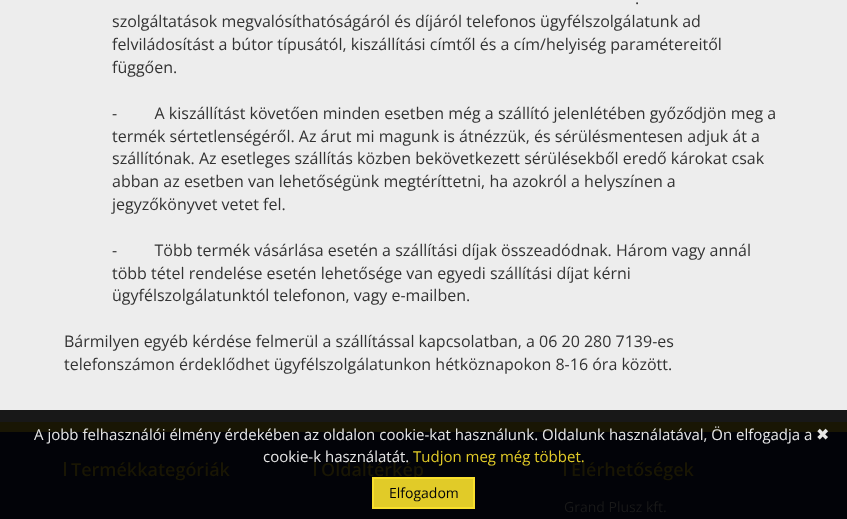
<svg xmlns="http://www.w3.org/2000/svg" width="847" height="519">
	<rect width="100%" height="100%" fill="#EDEDED" />
	<rect x="0" y="410" width="847" height="12" fill="#181818" />
	<g font-family="Open Sans" font-size="16" fill="#333333">
		<text x="635" y="4">.</text>
		<text x="112" y="27">szolgáltatások megvalósíthatóságáról és díjáról telefonos ügyfélszolgálatunk ad</text>
		<text x="112" y="50">felviládosítást a bútor típusától, kiszállítási címtől és a cím/helyiség paramétereitől</text>
		<text x="112" y="73">függően.</text>
		<text x="112" y="119" xml:space="preserve">-         A kiszállítást követően minden esetben még a szállító jelenlétében győződjön meg a</text>
		<text x="112" y="142">termék sértetlenségéről. Az árut mi magunk is átnézzük, és sérülésmentesen adjuk át a</text>
		<text x="112" y="164">szállítónak. Az esetleges szállítás közben bekövetkezett sérülésekből eredő károkat csak</text>
		<text x="112" y="187">abban az esetben van lehetőségünk megtéríttetni, ha azokról a helyszínen a</text>
		<text x="112" y="210">jegyzőkönyvet vetet fel.</text>
		<text x="112" y="256" xml:space="preserve">-         Több termék vásárlása esetén a szállítási díjak összeadódnak. Három vagy annál</text>
		<text x="112" y="279">több tétel rendelése esetén lehetősége van egyedi szállítási díjat kérni</text>
		<text x="112" y="301">ügyfélszolgálatunktól telefonon, vagy e-mailben.</text>
		<text x="64" y="347">Bármilyen egyéb kérdése felmerül a szállítással kapcsolatban, a 06 20 280 7139-es</text>
		<text x="64" y="370">telefonszámon érdeklődhet ügyfélszolgálatunkon hétköznapokon 8-16 óra között.</text>
	</g>
	<rect x="0" y="422" width="847" height="10" fill="#191604" />
	<rect x="0" y="432" width="847" height="87" fill="#020308" />
	<rect x="64" y="462" width="2" height="14" fill="#191604" />
	<text x="71" y="476" font-family="Open Sans" font-size="18" font-weight="600" fill="#191604">Termékkategóriák</text>
	<rect x="314" y="462" width="2" height="14" fill="#191604" />
	<text x="321" y="476" font-family="Open Sans" font-size="18" font-weight="600" fill="#191604">Oldaltérkép</text>
	<rect x="564" y="462" width="2" height="14" fill="#191604" />
	<text x="571" y="476" font-family="Open Sans" font-size="18" font-weight="600" fill="#191604">Elérhetőségek</text>
	<text x="564" y="512" font-family="Open Sans" font-size="14" fill="#191919">Grand Plusz kft.</text>
	<g font-family="Open Sans" font-size="15" fill="#E6E6E6">
		<text x="34" y="440">A jobb felhasználói élmény érdekében az oldalon cookie-kat használunk. Oldalunk használatával, Ön elfogadja a</text>
		<text x="263" y="462">cookie-k használatát.</text>
	</g>
	<text x="413" y="462" font-family="Open Sans" font-size="15" fill="#E1CB28">Tudjon meg még többet.</text>
	<text x="816" y="440" font-family="DejaVu Sans" font-size="16" fill="#E6E6E6">✖</text>
	<rect x="373" y="478" width="101" height="30" fill="#FAE12C" fill-opacity="0.9" stroke="#F8DF2C" stroke-width="2" />
	<text x="389" y="498" font-family="Open Sans" font-size="14" fill="#020308">Elfogadom</text>
</svg>
